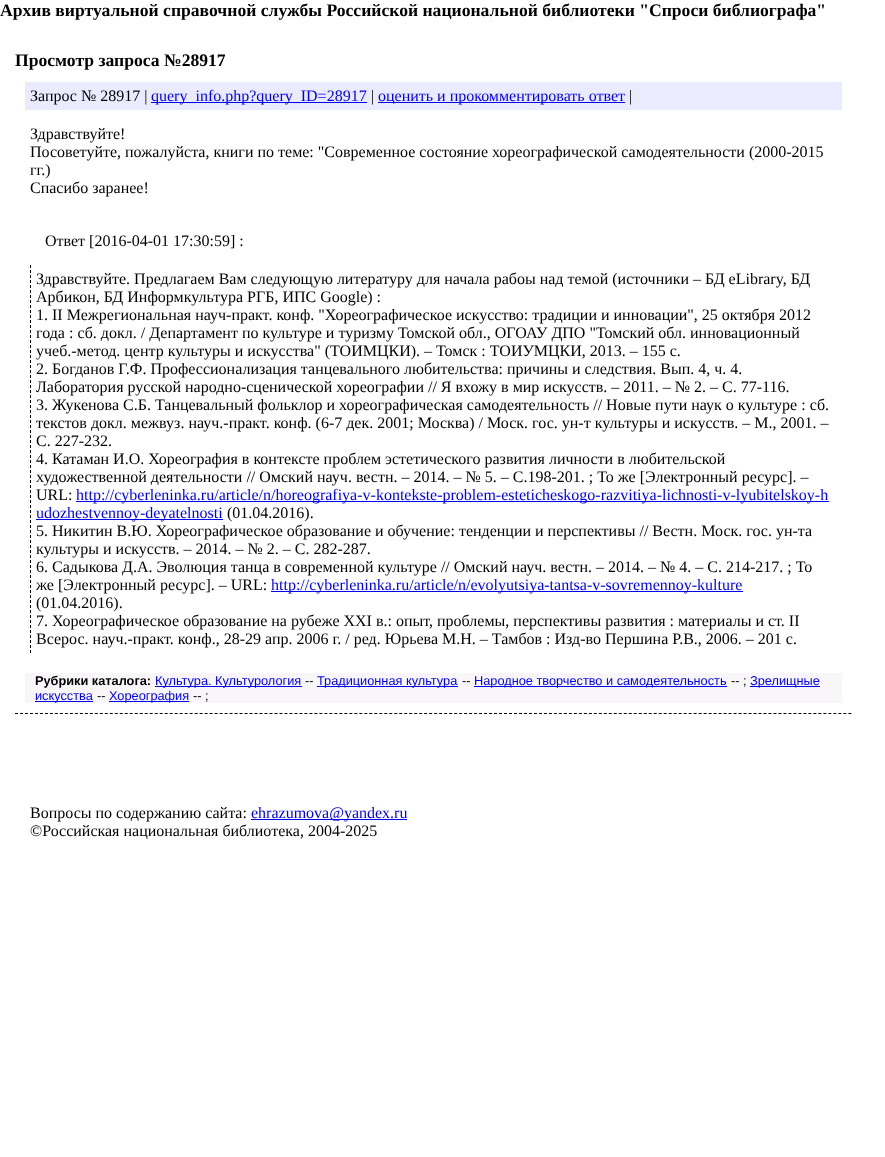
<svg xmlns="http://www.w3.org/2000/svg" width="885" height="1157">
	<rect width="100%" height="100%" fill="#FFFFFF" />
	<g font-family="Liberation Serif" font-size="17.6" font-weight="700" fill="#000000">
		<text x="0" y="16">Архив виртуальной справочной службы Российской национальной библиотеки "Спроси библиографа"</text>
		<text x="15" y="66">Просмотр запроса №28917</text>
	</g>
	<path d="M15 713.5H852" fill="none" stroke="#000000" stroke-dasharray="3 1.99" />
	<rect x="25" y="82" width="817" height="28" fill="#EBEBFF" />
	<text x="30" y="101" font-family="Liberation Serif" font-size="16" fill="#000000">Запрос № 28917 |</text>
	<rect x="151" y="102" width="216" height="1" fill="#0000EE" />
	<text x="151" y="101" font-family="Liberation Serif" font-size="16" fill="#0000EE">query_info.php?query_ID=28917</text>
	<text x="371" y="101" font-family="Liberation Serif" font-size="16" fill="#000000">|</text>
	<rect x="378" y="102" width="247" height="1" fill="#0000EE" />
	<text x="378" y="101" font-family="Liberation Serif" font-size="16" fill="#0000EE">оценить и прокомментировать ответ</text>
	<g font-family="Liberation Serif" font-size="16" fill="#000000">
		<text x="629" y="101">|</text>
		<text x="30" y="139">Здравствуйте!</text>
		<text x="30" y="157">Посоветуйте, пожалуйста, книги по теме: "Современное состояние хореографической самодеятельности (2000-2015</text>
		<text x="30" y="175">гг.)</text>
		<text x="30" y="193">Спасибо заранее!</text>
		<text x="45" y="246">Ответ [2016-04-01 17:30:59] :</text>
	</g>
	<path d="M30.5 265V653" fill="none" stroke="#000000" stroke-dasharray="3 2" />
	<g font-family="Liberation Serif" font-size="16" fill="#000000">
		<text x="36" y="284">Здравствуйте. Предлагаем Вам следующую литературу для начала рабоы над темой (источники – БД eLibrary, БД</text>
		<text x="36" y="302">Арбикон, БД Информкультура РГБ, ИПС Google) :</text>
		<text x="36" y="320">1. II Межрегиональная науч-практ. конф. "Хореографическое искусство: традиции и инновации", 25 октября 2012</text>
		<text x="36" y="338">года : сб. докл. / Департамент по культуре и туризму Томской обл., ОГОАУ ДПО "Томский обл. инновационный</text>
		<text x="36" y="356">учеб.-метод. центр культуры и искусства" (ТОИМЦКИ). – Томск : ТОИУМЦКИ, 2013. – 155 с.</text>
		<text x="36" y="374">2. Богданов Г.Ф. Профессионализация танцевального любительства: причины и следствия. Вып. 4, ч. 4.</text>
		<text x="36" y="392">Лаборатория русской народно-сценической хореографии // Я вхожу в мир искусств. – 2011. – № 2. – С. 77-116.</text>
		<text x="36" y="410">3. Жукенова С.Б. Танцевальный фольклор и хореографическая самодеятельность // Новые пути наук о культуре : сб.</text>
		<text x="36" y="428">текстов докл. межвуз. науч.-практ. конф. (6-7 дек. 2001; Москва) / Моск. гос. ун-т культуры и искусств. – М., 2001. –</text>
		<text x="36" y="446">С. 227-232.</text>
		<text x="36" y="464">4. Катаман И.О. Хореография в контексте проблем эстетического развития личности в любительской</text>
		<text x="36" y="482">художественной деятельности // Омский науч. вестн. – 2014. – № 5. – С.198-201. ; То же [Электронный ресурс]. –</text>
		<text x="36" y="500">URL:</text>
	</g>
	<rect x="76" y="501" width="753" height="1" fill="#0000EE" />
	<text x="76" y="500" font-family="Liberation Serif" font-size="16" fill="#0000EE">http://cyberleninka.ru/article/n/horeografiya-v-kontekste-problem-esteticheskogo-razvitiya-lichnosti-v-lyubitelskoy-h</text>
	<rect x="36" y="519" width="187" height="1" fill="#0000EE" />
	<text x="36" y="518" font-family="Liberation Serif" font-size="16" fill="#0000EE">udozhestvennoy-deyatelnosti</text>
	<g font-family="Liberation Serif" font-size="16" fill="#000000">
		<text x="227" y="518">(01.04.2016).</text>
		<text x="36" y="536">5. Никитин В.Ю. Хореографическое образование и обучение: тенденции и перспективы // Вестн. Моск. гос. ун-та</text>
		<text x="36" y="554">культуры и искусств. – 2014. – № 2. – С. 282-287.</text>
		<text x="36" y="572">6. Садыкова Д.А. Эволюция танца в современной культуре // Омский науч. вестн. – 2014. – № 4. – С. 214-217. ; То</text>
		<text x="36" y="590">же [Электронный ресурс]. – URL:</text>
	</g>
	<rect x="271" y="591" width="472" height="1" fill="#0000EE" />
	<text x="271" y="590" font-family="Liberation Serif" font-size="16" fill="#0000EE">http://cyberleninka.ru/article/n/evolyutsiya-tantsa-v-sovremennoy-kulture</text>
	<g font-family="Liberation Serif" font-size="16" fill="#000000">
		<text x="36" y="608">(01.04.2016).</text>
		<text x="36" y="626">7. Хореографическое образование на рубеже XXI в.: опыт, проблемы, перспективы развития : материалы и ст. II</text>
		<text x="36" y="644">Всерос. науч.-практ. конф., 28-29 апр. 2006 г. / ред. Юрьева М.Н. – Тамбов : Изд-во Першина Р.В., 2006. – 201 с.</text>
	</g>
	<rect x="25" y="673" width="817" height="30" fill="#F8F6F8" />
	<text x="35" y="685" font-family="Liberation Sans" font-size="12.75" font-weight="700" fill="#000000">Рубрики каталога:</text>
	<rect x="155" y="686" width="147" height="1" fill="#0000EE" />
	<text x="155" y="685" font-family="Liberation Sans" font-size="12.75" fill="#0000EE">Культура. Культурология</text>
	<text x="305" y="685" font-family="Liberation Sans" font-size="12.75" fill="#000000">--</text>
	<rect x="317" y="686" width="141" height="1" fill="#0000EE" />
	<text x="317" y="685" font-family="Liberation Sans" font-size="12.75" fill="#0000EE">Традиционная культура</text>
	<text x="462" y="685" font-family="Liberation Sans" font-size="12.75" fill="#000000">--</text>
	<rect x="474" y="686" width="253" height="1" fill="#0000EE" />
	<text x="474" y="685" font-family="Liberation Sans" font-size="12.75" fill="#0000EE">Народное творчество и самодеятельность</text>
	<text x="731" y="685" font-family="Liberation Sans" font-size="12.75" fill="#000000">-- ;</text>
	<rect x="750" y="686" width="70" height="1" fill="#0000EE" />
	<text x="750" y="685" font-family="Liberation Sans" font-size="12.75" fill="#0000EE">Зрелищные</text>
	<rect x="35" y="701" width="58" height="1" fill="#0000EE" />
	<text x="35" y="700" font-family="Liberation Sans" font-size="12.75" fill="#0000EE">искусства</text>
	<text x="97" y="700" font-family="Liberation Sans" font-size="12.75" fill="#000000">--</text>
	<rect x="109" y="701" width="80" height="1" fill="#0000EE" />
	<text x="109" y="700" font-family="Liberation Sans" font-size="12.75" fill="#0000EE">Хореография</text>
	<text x="193" y="700" font-family="Liberation Sans" font-size="12.75" fill="#000000">-- ;</text>
	<text x="30" y="818" font-family="Liberation Serif" font-size="16" fill="#000000">Вопросы по содержанию сайта:</text>
	<rect x="251" y="819" width="156" height="1" fill="#0000EE" />
	<text x="251" y="818" font-family="Liberation Serif" font-size="16" fill="#0000EE">ehrazumova@yandex.ru</text>
	<text x="30" y="836" font-family="Liberation Serif" font-size="16" fill="#000000">©Российская национальная библиотека, 2004-2025</text>
</svg>
